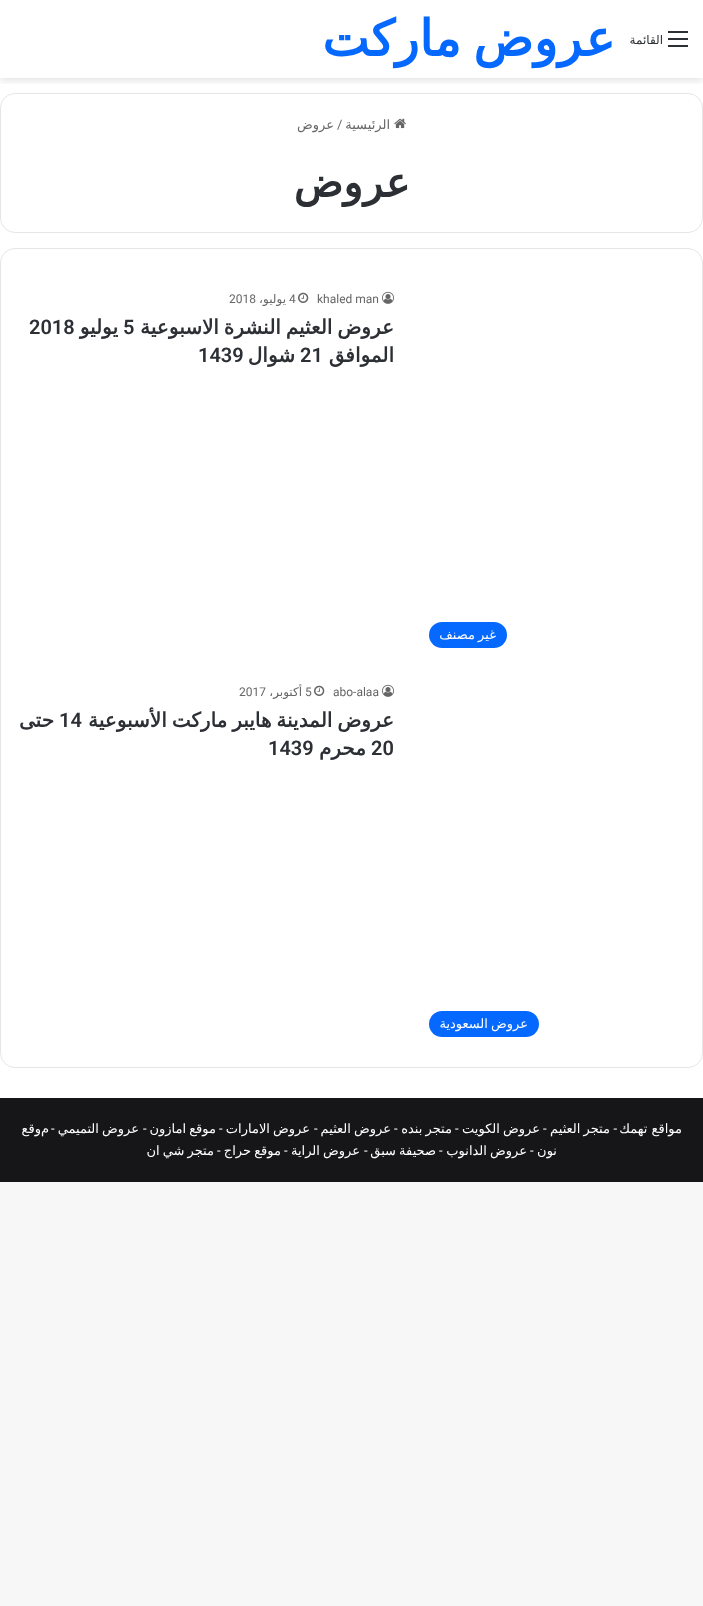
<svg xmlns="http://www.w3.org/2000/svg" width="703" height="1606">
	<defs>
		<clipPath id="clip1"><rect x="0" y="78" width="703" height="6" /></clipPath>
	</defs>
	<rect width="100%" height="100%" fill="#F7F7F7" />
	<rect x="0" y="0" width="703" height="1098" fill="#FFFFFF" />
	<g clip-path="url(#clip1)">
		<rect x="0" y="3" width="703" height="78" fill="#000000" fill-opacity="0.1" filter="blur(3.5px)" />
	</g>
	<rect x="668" y="38" width="20" height="2" fill="#2C2F34" />
	<rect x="668" y="31" width="20" height="2" fill="#2C2F34" />
	<rect x="668" y="45" width="20" height="2" fill="#2C2F34" />
	<text x="663" y="44" font-family="DejaVu Sans" font-size="12" direction="rtl" fill="#2C2F34">القائمة</text>
	<text x="615" y="56" word-spacing="-4" font-family="DejaVu Sans" font-size="50" font-weight="700" direction="rtl" fill="#0669FF">عروض ماركت</text>
	<rect x="0.5" y="93.5" width="702" height="139" rx="14.5" fill="none" stroke="#E6E6E6" />
	<image x="394" y="118" width="12" height="11" href="assets/img1.png" />
	<text x="390" y="129" font-family="DejaVu Sans" font-size="13" direction="rtl" fill="#666666">الرئيسية</text>
	<text x="337" y="129" font-family="Roboto" font-size="13" fill="#666666">/</text>
	<text x="334" y="129" font-family="DejaVu Sans" font-size="13" direction="rtl" fill="#666666">عروض</text>
	<text x="410" y="197" font-family="DejaVu Sans" font-size="41" font-weight="700" direction="rtl" fill="#2C2F34">عروض</text>
	<rect x="0.5" y="248.5" width="702" height="819" rx="14.5" fill="none" stroke="#E6E6E6" />
	<image x="382" y="291" width="12" height="13" href="assets/img2.png" />
	<text x="317" y="303" font-family="Roboto" font-size="12" fill="#666666">khaled man</text>
	<image x="298" y="292" width="11" height="11" href="assets/img3.png" />
	<text x="289" y="303" font-family="Roboto" font-size="12" fill="#666666">4</text>
	<text x="286" y="303" font-family="DejaVu Sans" font-size="12" direction="rtl" fill="#666666">يوليو،</text>
	<text x="229" y="303" font-family="Roboto" font-size="12" fill="#666666">2018</text>
	<text x="394" y="334" word-spacing="-1.5" font-family="DejaVu Sans" font-size="20" font-weight="700" direction="rtl" fill="#2C2F34">عروض العثيم النشرة الاسبوعية</text>
	<text x="123" y="334" font-family="Roboto" font-size="20" font-weight="600" fill="#2C2F34">5</text>
	<text x="118" y="334" font-family="DejaVu Sans" font-size="20" font-weight="700" direction="rtl" fill="#2C2F34">يوليو</text>
	<text x="29" y="334" font-family="Roboto" font-size="20" font-weight="600" fill="#2C2F34">2018</text>
	<text x="394" y="362" font-family="DejaVu Sans" font-size="20" font-weight="700" direction="rtl" fill="#2C2F34">الموافق</text>
	<text x="300" y="362" font-family="Roboto" font-size="20" font-weight="600" fill="#2C2F34">21</text>
	<text x="295" y="362" font-family="DejaVu Sans" font-size="20" font-weight="700" direction="rtl" fill="#2C2F34">شوال</text>
	<text x="198" y="362" font-family="Roboto" font-size="20" font-weight="600" fill="#2C2F34">1439</text>
	<rect x="429" y="622" width="78" height="26" rx="13" fill="#0669FF" />
	<text x="496" y="639" word-spacing="-1" font-family="DejaVu Sans" font-size="13" direction="rtl" fill="#FFFFFF">غير مصنف</text>
	<image x="382" y="684" width="12" height="13" href="assets/img2.png" />
	<text x="333" y="696" font-family="Roboto" font-size="12" fill="#666666">abo-alaa</text>
	<image x="314" y="685" width="11" height="11" href="assets/img3.png" />
	<text x="305" y="696" font-family="Roboto" font-size="12" fill="#666666">5</text>
	<text x="302" y="696" font-family="DejaVu Sans" font-size="12" direction="rtl" fill="#666666">أكتوبر،</text>
	<text x="239" y="696" font-family="Roboto" font-size="12" fill="#666666">2017</text>
	<text x="394" y="727" word-spacing="-1.5" font-family="DejaVu Sans" font-size="20" font-weight="700" direction="rtl" fill="#2C2F34">عروض المدينة هايبر ماركت الأسبوعية</text>
	<text x="59" y="727" font-family="Roboto" font-size="20" font-weight="600" fill="#2C2F34">14</text>
	<text x="54" y="727" font-family="DejaVu Sans" font-size="20" font-weight="700" direction="rtl" fill="#2C2F34">حتى</text>
	<text x="371" y="755" font-family="Roboto" font-size="20" font-weight="600" fill="#2C2F34">20</text>
	<text x="366" y="755" font-family="DejaVu Sans" font-size="20" font-weight="700" direction="rtl" fill="#2C2F34">محرم</text>
	<text x="268" y="755" font-family="Roboto" font-size="20" font-weight="600" fill="#2C2F34">1439</text>
	<rect x="429" y="1011" width="110" height="26" rx="13" fill="#0669FF" />
	<text x="528" y="1028" word-spacing="-1" font-family="DejaVu Sans" font-size="13" direction="rtl" fill="#FFFFFF">عروض السعودية</text>
	<rect x="0" y="1098" width="703" height="84" fill="#161619" />
	<text x="682" y="1133" font-family="DejaVu Sans" font-size="13" direction="rtl" fill="#FFFFFF">مواقع تهمك</text>
	<text x="617" y="1133" font-family="Roboto" font-size="13" direction="rtl" fill="#FFFFFF">-</text>
	<text x="610" y="1133" word-spacing="-1" font-family="DejaVu Sans" font-size="13" direction="rtl" fill="#FFFFFF">متجر العثيم</text>
	<text x="543" y="1133" font-family="Roboto" font-size="13" fill="#FFFFFF">-</text>
	<text x="540" y="1133" word-spacing="-1" font-family="DejaVu Sans" font-size="13" direction="rtl" fill="#FFFFFF">عروض الكويت</text>
	<text x="455" y="1133" font-family="Roboto" font-size="13" fill="#FFFFFF">-</text>
	<text x="452" y="1133" word-spacing="-1" font-family="DejaVu Sans" font-size="13" direction="rtl" fill="#FFFFFF">متجر بنده</text>
	<text x="394" y="1133" font-family="Roboto" font-size="13" fill="#FFFFFF">-</text>
	<text x="391" y="1133" word-spacing="-1" font-family="DejaVu Sans" font-size="13" direction="rtl" fill="#FFFFFF">عروض العثيم</text>
	<text x="314" y="1133" font-family="Roboto" font-size="13" fill="#FFFFFF">-</text>
	<text x="310" y="1133" word-spacing="-1" font-family="DejaVu Sans" font-size="13" direction="rtl" fill="#FFFFFF">عروض الامارات</text>
	<text x="219" y="1133" font-family="Roboto" font-size="13" fill="#FFFFFF">-</text>
	<text x="216" y="1133" word-spacing="-1" font-family="DejaVu Sans" font-size="13" direction="rtl" fill="#FFFFFF">موقع امازون</text>
	<text x="143" y="1133" font-family="Roboto" font-size="13" fill="#FFFFFF">-</text>
	<text x="139" y="1133" word-spacing="-1" font-family="DejaVu Sans" font-size="13" direction="rtl" fill="#FFFFFF">عروض التميمي</text>
	<text x="51" y="1133" font-family="Roboto" font-size="13" fill="#FFFFFF">-</text>
	<g font-family="DejaVu Sans" font-size="13" direction="rtl" fill="#FFFFFF">
		<text x="49" y="1133">م</text>
		<text x="41" y="1133">وقع</text>
		<text x="557" y="1155">نون</text>
	</g>
	<text x="530" y="1155" font-family="Roboto" font-size="13" fill="#FFFFFF">-</text>
	<text x="527" y="1155" word-spacing="-1" font-family="DejaVu Sans" font-size="13" direction="rtl" fill="#FFFFFF">عروض الدانوب</text>
	<text x="439" y="1155" font-family="Roboto" font-size="13" fill="#FFFFFF">-</text>
	<text x="436" y="1155" word-spacing="-1" font-family="DejaVu Sans" font-size="13" direction="rtl" fill="#FFFFFF">صحيفة سبق</text>
	<text x="364" y="1155" font-family="Roboto" font-size="13" fill="#FFFFFF">-</text>
	<text x="360" y="1155" word-spacing="-1" font-family="DejaVu Sans" font-size="13" direction="rtl" fill="#FFFFFF">عروض الراية</text>
	<text x="284" y="1155" font-family="Roboto" font-size="13" fill="#FFFFFF">-</text>
	<text x="281" y="1155" word-spacing="-1" font-family="DejaVu Sans" font-size="13" direction="rtl" fill="#FFFFFF">موقع حراج</text>
	<text x="217" y="1155" font-family="Roboto" font-size="13" fill="#FFFFFF">-</text>
	<text x="214" y="1155" word-spacing="-1" font-family="DejaVu Sans" font-size="13" direction="rtl" fill="#FFFFFF">متجر شي ان</text>
</svg>
